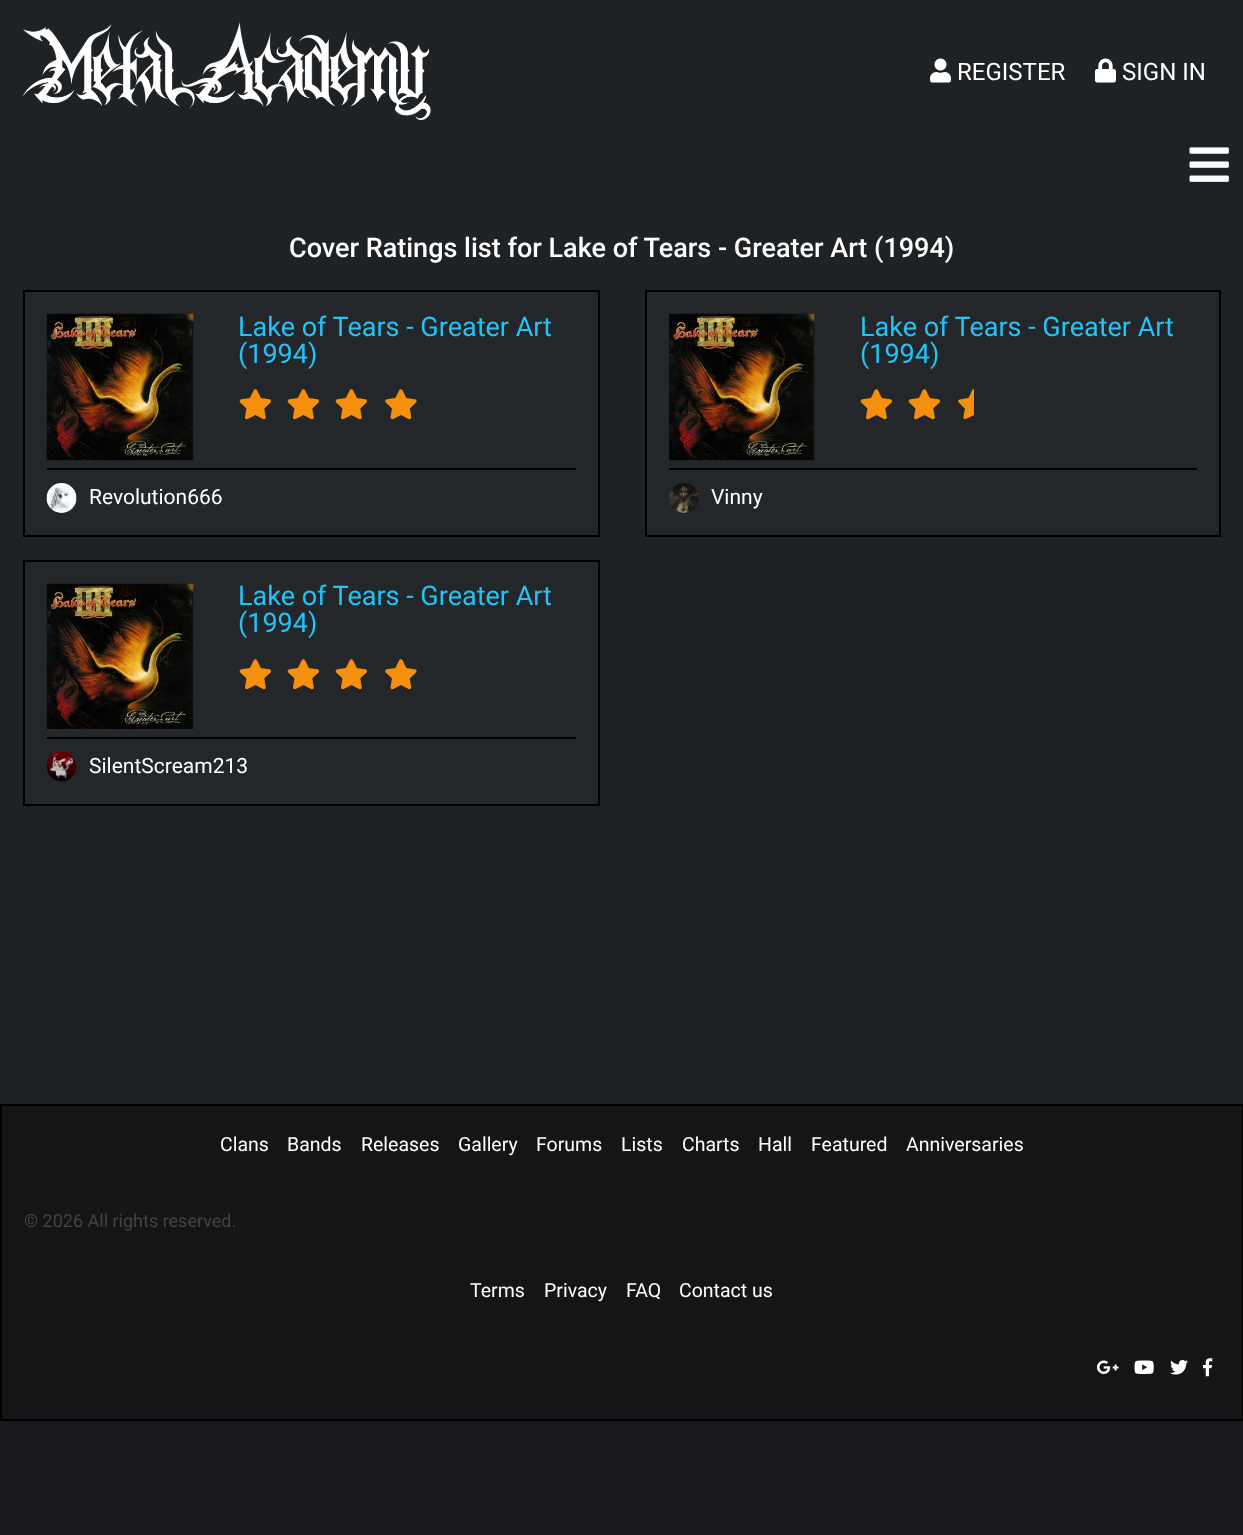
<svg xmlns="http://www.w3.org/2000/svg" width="1243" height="1535">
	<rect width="100%" height="100%" fill="#181A1F" />
	<rect x="0" y="0" width="1243" height="1104" fill="#1F2225" />
	<image x="22" y="22" width="409" height="98" href="assets/img1.png" />
	<image x="930" y="58" width="21" height="25" href="assets/img2.png" />
	<text x="957" y="80" font-family="Roboto" font-size="24" fill="#FFFFFF">REGISTER</text>
	<image x="1095" y="58" width="21" height="25" href="assets/img3.png" />
	<text x="1122" y="80" font-family="Roboto" font-size="24" fill="#FFFFFF">SIGN IN</text>
	<image x="1189" y="147" width="40" height="35" href="assets/img4.png" />
	<text x="289" y="257" font-family="Roboto" font-size="27" font-weight="500" fill="#FFFFFF">Cover Ratings list for Lake of Tears - Greater Art (1994)</text>
	<rect x="24" y="291" width="575" height="245" fill="#24272A" stroke="#000000" stroke-width="2" />
	<image x="46" y="313" width="148" height="148" href="assets/img5.png" />
	<g font-family="Roboto" font-size="27" fill="#25C2F5">
		<text x="238" y="336">Lake of Tears - Greater Art</text>
		<text x="238" y="363">(1994)</text>
	</g>
	<image x="239" y="389" width="32" height="31" href="assets/img6.png" />
	<image x="287" y="389" width="32" height="31" href="assets/img6.png" />
	<image x="335" y="389" width="32" height="31" href="assets/img6.png" />
	<image x="385" y="389" width="32" height="31" href="assets/img7.png" />
	<rect x="47" y="468" width="529" height="2" fill="#000000" />
	<image x="46" y="483" width="31" height="30" href="assets/img8.png" />
	<text x="89" y="504" font-family="Roboto" font-size="21" fill="#FFFFFF">Revolution666</text>
	<rect x="646" y="291" width="574" height="245" fill="#24272A" stroke="#000000" stroke-width="2" />
	<image x="669" y="313" width="146" height="148" href="assets/img9.png" />
	<g font-family="Roboto" font-size="27" fill="#25C2F5">
		<text x="860" y="336">Lake of Tears - Greater Art</text>
		<text x="860" y="363">(1994)</text>
	</g>
	<image x="860" y="389" width="32" height="31" href="assets/img6.png" />
	<image x="908" y="389" width="32" height="31" href="assets/img6.png" />
	<path d="M974 389C972 389 971.5 391.5 971 393L968.5 398C955 400 955.5 399.5 965 408.5C962.5 421.5 962 421 974 415Z" fill="#F5900E" />
	<rect x="669" y="468" width="528" height="2" fill="#000000" />
	<image x="669" y="483" width="30" height="30" href="assets/img10.png" />
	<text x="711" y="504" font-family="Roboto" font-size="21" fill="#FFFFFF">Vinny</text>
	<rect x="24" y="561" width="575" height="244" fill="#24272A" stroke="#000000" stroke-width="2" />
	<image x="46" y="583" width="148" height="146" href="assets/img11.png" />
	<g font-family="Roboto" font-size="27" fill="#25C2F5">
		<text x="238" y="605">Lake of Tears - Greater Art</text>
		<text x="238" y="632">(1994)</text>
	</g>
	<image x="239" y="659" width="32" height="31" href="assets/img6.png" />
	<image x="287" y="659" width="32" height="31" href="assets/img6.png" />
	<image x="335" y="659" width="32" height="31" href="assets/img6.png" />
	<image x="385" y="659" width="32" height="31" href="assets/img7.png" />
	<rect x="47" y="737" width="529" height="2" fill="#000000" />
	<image x="46" y="751" width="31" height="31" href="assets/img12.png" />
	<text x="89" y="773" font-family="Roboto" font-size="21" fill="#FFFFFF">SilentScream213</text>
	<rect x="1" y="1105" width="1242" height="315" fill="#131517" stroke="#000000" stroke-width="2" />
	<g font-family="Roboto" font-size="19.5" fill="#FFFFFF">
		<text x="220" y="1151">Clans</text>
		<text x="287" y="1151">Bands</text>
		<text x="361" y="1151">Releases</text>
		<text x="458" y="1151">Gallery</text>
		<text x="536" y="1151">Forums</text>
		<text x="621" y="1151">Lists</text>
		<text x="682" y="1151">Charts</text>
		<text x="758" y="1151">Hall</text>
		<text x="811" y="1151">Featured</text>
		<text x="906" y="1151">Anniversaries</text>
	</g>
	<text x="24" y="1227" font-family="Roboto" font-size="18" fill="#444444">© 2026 All rights reserved.</text>
	<g font-family="Roboto" font-size="19.5" fill="#FFFFFF">
		<text x="470" y="1297">Terms</text>
		<text x="544" y="1297">Privacy</text>
		<text x="626" y="1297">FAQ</text>
		<text x="679" y="1297">Contact us</text>
	</g>
	<image x="1097" y="1360" width="22" height="14" href="assets/img13.png" />
	<image x="1134" y="1360" width="20" height="14" href="assets/img14.png" />
	<image x="1170" y="1359" width="18" height="16" href="assets/img15.png" />
	<image x="1203" y="1358" width="10" height="19" href="assets/img16.png" />
</svg>
